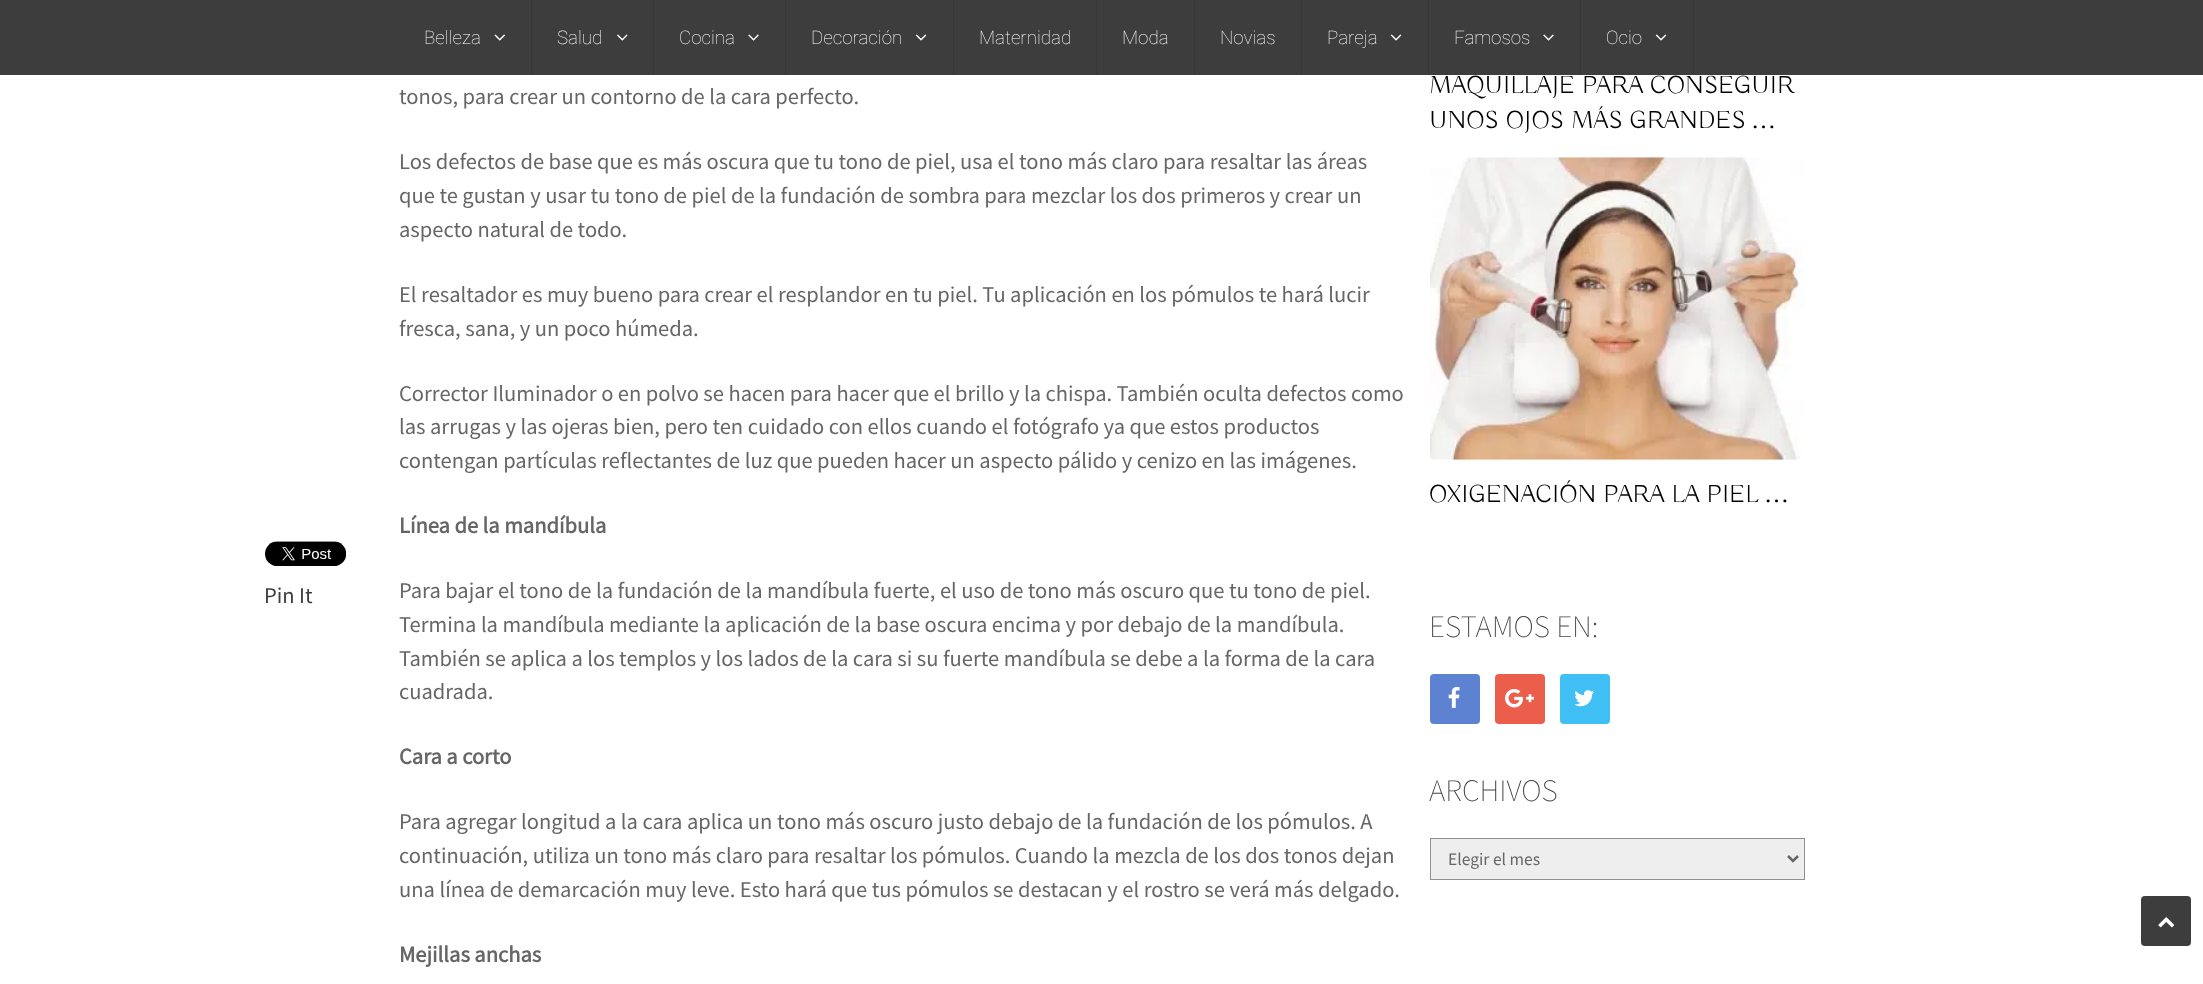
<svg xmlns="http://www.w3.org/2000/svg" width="2203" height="984">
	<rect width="100%" height="100%" fill="#FFFFFF" />
	<rect x="0" y="0" width="2203" height="75" fill="#3D3D3D" />
	<rect x="531" y="0" width="1" height="75" fill="#373737" />
	<text x="424" y="44" font-family="Roboto" font-size="18.75" font-weight="100" fill="#FFFFFF">Belleza</text>
	<image x="494" y="34" width="11" height="7" href="assets/img1.png" />
	<rect x="653" y="0" width="1" height="75" fill="#373737" />
	<text x="557" y="44" font-family="Roboto" font-size="18.75" font-weight="100" fill="#FFFFFF">Salud</text>
	<image x="617" y="34" width="11" height="7" href="assets/img2.png" />
	<rect x="785" y="0" width="1" height="75" fill="#373737" />
	<text x="679" y="44" font-family="Roboto" font-size="18.75" font-weight="100" fill="#FFFFFF">Cocina</text>
	<image x="748" y="34" width="11" height="7" href="assets/img3.png" />
	<rect x="953" y="0" width="1" height="75" fill="#373737" />
	<text x="811" y="44" font-family="Roboto" font-size="18.75" font-weight="100" fill="#FFFFFF">Decoración</text>
	<image x="915" y="34" width="12" height="7" href="assets/img4.png" />
	<rect x="1096" y="0" width="1" height="75" fill="#373737" />
	<text x="979" y="44" font-family="Roboto" font-size="18.75" font-weight="100" fill="#FFFFFF">Maternidad</text>
	<rect x="1194" y="0" width="1" height="75" fill="#373737" />
	<text x="1122" y="44" font-family="Roboto" font-size="18.75" font-weight="100" fill="#FFFFFF">Moda</text>
	<rect x="1301" y="0" width="1" height="75" fill="#373737" />
	<text x="1220" y="44" font-family="Roboto" font-size="18.75" font-weight="100" fill="#FFFFFF">Novias</text>
	<rect x="1428" y="0" width="1" height="75" fill="#373737" />
	<text x="1327" y="44" font-family="Roboto" font-size="18.75" font-weight="100" fill="#FFFFFF">Pareja</text>
	<image x="1390" y="34" width="12" height="7" href="assets/img4.png" />
	<rect x="1580" y="0" width="1" height="75" fill="#373737" />
	<text x="1454" y="44" font-family="Roboto" font-size="18.75" font-weight="100" fill="#FFFFFF">Famosos</text>
	<image x="1543" y="34" width="11" height="7" href="assets/img3.png" />
	<rect x="1693" y="0" width="1" height="75" fill="#373737" />
	<text x="1606" y="44" font-family="Roboto" font-size="18.75" font-weight="100" fill="#FFFFFF">Ocio</text>
	<image x="1655" y="34" width="12" height="7" href="assets/img4.png" />
	<g font-family="Source Sans Pro" font-size="22.5" fill="#666666">
		<text x="399" y="104">tonos, para crear un contorno de la cara perfecto.</text>
		<text x="399" y="169">Los defectos de base que es más oscura que tu tono de piel, usa el tono más claro para resaltar las áreas</text>
		<text x="399" y="203">que te gustan y usar tu tono de piel de la fundación de sombra para mezclar los dos primeros y crear un</text>
		<text x="399" y="237">aspecto natural de todo.</text>
		<text x="399" y="302">El resaltador es muy bueno para crear el resplandor en tu piel. Tu aplicación en los pómulos te hará lucir</text>
		<text x="399" y="336">fresca, sana, y un poco húmeda.</text>
		<text x="399" y="401">Corrector Iluminador o en polvo se hacen para hacer que el brillo y la chispa. También oculta defectos como</text>
		<text x="399" y="434">las arrugas y las ojeras bien, pero ten cuidado con ellos cuando el fotógrafo ya que estos productos</text>
		<text x="399" y="468">contengan partículas reflectantes de luz que pueden hacer un aspecto pálido y cenizo en las imágenes.</text>
	</g>
	<text x="399" y="533" font-family="Source Sans Pro" font-size="22.5" font-weight="700" fill="#666666">Línea de la mandíbula</text>
	<image x="265" y="541" width="82" height="25" href="assets/img5.png" />
	<text x="264" y="603" font-family="Source Sans Pro" font-size="22.5" fill="#3D3D3D">Pin It</text>
	<g font-family="Source Sans Pro" font-size="22.5" fill="#666666">
		<text x="399" y="598">Para bajar el tono de la fundación de la mandíbula fuerte, el uso de tono más oscuro que tu tono de piel.</text>
		<text x="399" y="632">Termina la mandíbula mediante la aplicación de la base oscura encima y por debajo de la mandíbula.</text>
		<text x="399" y="666">También se aplica a los templos y los lados de la cara si su fuerte mandíbula se debe a la forma de la cara</text>
		<text x="399" y="699">cuadrada.</text>
	</g>
	<text x="399" y="764" font-family="Source Sans Pro" font-size="22.5" font-weight="700" fill="#666666">Cara a corto</text>
	<g font-family="Source Sans Pro" font-size="22.5" fill="#666666">
		<text x="399" y="829">Para agregar longitud a la cara aplica un tono más oscuro justo debajo de la fundación de los pómulos. A</text>
		<text x="399" y="863">continuación, utiliza un tono más claro para resaltar los pómulos. Cuando la mezcla de los dos tonos dejan</text>
		<text x="399" y="897">una línea de demarcación muy leve. Esto hará que tus pómulos se destacan y el rostro se verá más delgado.</text>
	</g>
	<text x="399" y="962" font-family="Source Sans Pro" font-size="22.5" font-weight="700" fill="#666666">Mejillas anchas</text>
	<g font-family="Buda" font-size="25" font-weight="300" fill="#000000">
		<text x="1429" y="93">MAQUILLAJE PARA CONSEGUIR</text>
		<text x="1429" y="128">UNOS OJOS MÁS GRANDES</text>
	</g>
	<text x="1751" y="128" font-family="Liberation Serif" font-size="25" fill="#000000">…</text>
	<image x="1430" y="157" width="375" height="303" href="assets/img6.png" />
	<text x="1429" y="502" font-family="Buda" font-size="25" font-weight="300" fill="#000000">OXIGENACIÓN PARA LA PIEL</text>
	<text x="1764" y="502" font-family="Liberation Serif" font-size="25" fill="#000000">…</text>
	<text x="1429" y="637" font-family="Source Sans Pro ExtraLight" font-size="31.25" font-weight="200" fill="#444444">ESTAMOS EN:</text>
	<rect x="1430" y="674" width="50" height="50" rx="4" fill="#5D82D1" />
	<image x="1448" y="687" width="12" height="21" href="assets/img7.png" />
	<rect x="1495" y="674" width="50" height="50" rx="4" fill="#EB5E4C" />
	<image x="1505" y="689" width="29" height="19" href="assets/img8.png" />
	<rect x="1560" y="674" width="50" height="50" rx="4" fill="#40BFF5" />
	<image x="1574" y="690" width="20" height="17" href="assets/img9.png" />
	<text x="1429" y="801" font-family="Source Sans Pro ExtraLight" font-size="31.25" font-weight="200" fill="#444444">ARCHIVOS</text>
	<rect x="1430.5" y="838.5" width="374" height="41" fill="#EEEEEE" stroke="#919191" />
	<path d="M1788 856L1793 861L1798 856" fill="none" stroke="#666666" stroke-width="2.5" />
	<text x="1448" y="865" font-family="Source Sans Pro" font-size="17.5" fill="#666666">Elegir el mes</text>
	<rect x="2141" y="896" width="50" height="50" rx="4" fill="#3D3D3D" />
	<image x="2158" y="917" width="17" height="11" href="assets/img10.png" />
</svg>
